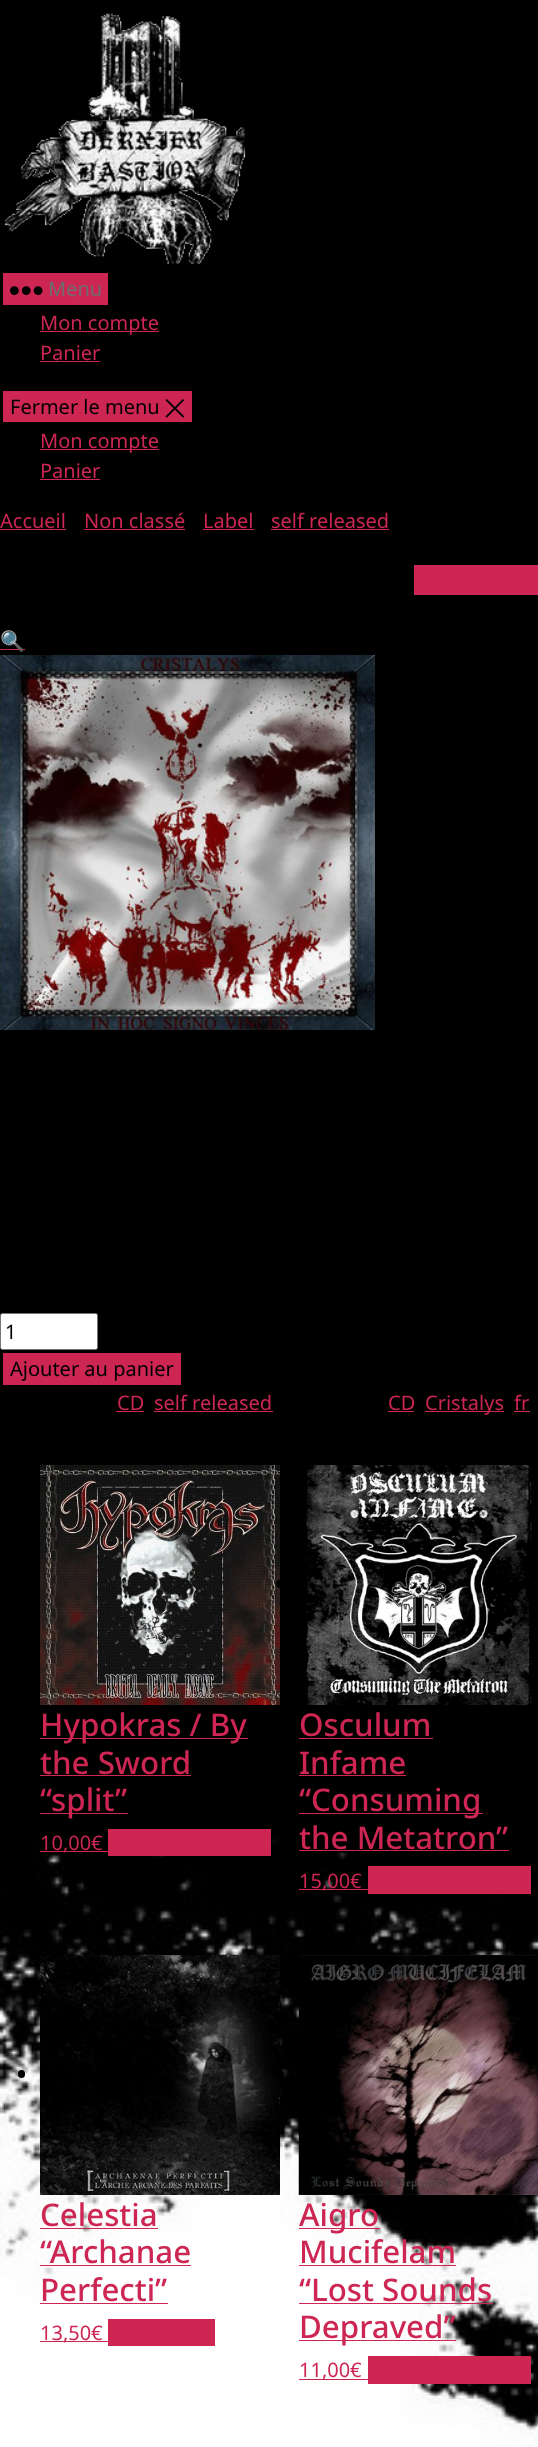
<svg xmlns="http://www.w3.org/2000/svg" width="538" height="2447">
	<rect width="100%" height="100%" fill="#FFFFFF" />
	<image x="0" y="0" width="538" height="2447" href="assets/img1.png" />
	<image x="4" y="13" width="242" height="251" href="assets/img2.png" />
	<rect x="3" y="273" width="105" height="32" fill="#CD2653" />
	<image x="10" y="286" width="33" height="9" href="assets/img3.png" />
	<text x="48" y="296" font-family="Noto Sans" font-size="20" fill="#6D6D6D">Menu</text>
	<rect x="40" y="331" width="119" height="1" fill="#CD2653" />
	<g font-family="Noto Sans" font-size="20" fill="#CD2653">
		<text x="40" y="330">Mon compte</text>
		<text x="40" y="360">Panier</text>
	</g>
	<rect x="40" y="361" width="60" height="1" fill="#CD2653" />
	<rect x="3" y="391" width="189" height="31" fill="#CD2653" />
	<text x="10" y="414" font-family="Noto Sans" font-size="20" fill="#000000">Fermer le menu</text>
	<image x="165" y="399" width="20" height="19" href="assets/img4.png" />
	<rect x="40" y="449" width="119" height="1" fill="#CD2653" />
	<g font-family="Noto Sans" font-size="20" fill="#CD2653">
		<text x="40" y="448">Mon compte</text>
		<text x="40" y="478">Panier</text>
	</g>
	<rect x="40" y="479" width="60" height="1" fill="#CD2653" />
	<text x="0" y="528" font-family="Noto Sans" font-size="20" fill="#CD2653">Accueil</text>
	<rect x="0" y="529" width="66" height="1" fill="#CD2653" />
	<text x="84" y="528" font-family="Noto Sans" font-size="20" fill="#CD2653">Non classé</text>
	<rect x="84" y="529" width="101" height="1" fill="#CD2653" />
	<text x="203" y="528" font-family="Noto Sans" font-size="20" fill="#CD2653">Label</text>
	<rect x="203" y="529" width="51" height="1" fill="#CD2653" />
	<text x="271" y="528" font-family="Noto Sans" font-size="20" fill="#CD2653">self released</text>
	<rect x="271" y="529" width="118" height="1" fill="#CD2653" />
	<rect x="414" y="565" width="124" height="30" fill="#CD2653" />
	<rect x="0" y="649" width="25" height="1" fill="#CD2653" />
	<text x="0" y="648" font-family="Noto Color Emoji" font-size="20" fill="#CD2653">🔍</text>
	<image x="0" y="655" width="375" height="375" href="assets/img5.png" />
	<rect x="0.5" y="1313.5" width="97" height="36" rx="2" fill="#FFFFFF" stroke="#767676" />
	<text x="5" y="1339" font-family="Noto Sans" font-size="20" fill="#000000">1</text>
	<rect x="3" y="1353" width="178" height="32" fill="#CD2653" />
	<text x="10" y="1376" font-family="Noto Sans" font-size="20" fill="#000000">Ajouter au panier</text>
	<text x="117" y="1410" font-family="Noto Sans" font-size="20" fill="#CD2653">CD</text>
	<rect x="116" y="1411" width="28" height="1" fill="#CD2653" />
	<text x="154" y="1410" font-family="Noto Sans" font-size="20" fill="#CD2653">self released</text>
	<rect x="154" y="1411" width="119" height="1" fill="#CD2653" />
	<text x="388" y="1410" font-family="Noto Sans" font-size="20" fill="#CD2653">CD</text>
	<rect x="388" y="1411" width="26" height="1" fill="#CD2653" />
	<rect x="425" y="1411" width="79" height="1" fill="#CD2653" />
	<g font-family="Noto Sans" font-size="20" fill="#CD2653">
		<text x="425" y="1410">Cristalys</text>
		<text x="514" y="1410">fr</text>
	</g>
	<rect x="514" y="1411" width="16" height="1" fill="#CD2653" />
	<image x="40" y="1465" width="240" height="240" href="assets/img6.png" />
	<rect x="40" y="1738" width="208" height="1" fill="#CD2653" />
	<g font-family="Noto Sans" font-size="31.25" font-weight="500" fill="#CD2653">
		<text x="40" y="1736">Hypokras / By</text>
		<text x="40" y="1774">the Sword</text>
	</g>
	<rect x="40" y="1775" width="151" height="1" fill="#CD2653" />
	<rect x="40" y="1813" width="88" height="1" fill="#CD2653" />
	<text x="40" y="1811" font-family="Noto Sans" font-size="31.25" font-weight="500" fill="#CD2653">“split”</text>
	<rect x="40" y="1851" width="68" height="1" fill="#CD2653" />
	<text x="40" y="1850" font-family="Noto Sans" font-size="20" fill="#CD2653">10,00€</text>
	<rect x="108" y="1829" width="163" height="27" fill="#CD2653" />
	<circle cx="280" cy="1584" r="4" fill="#000000" />
	<image x="306" y="1465" width="226" height="240" href="assets/img7.png" />
	<text x="299" y="1736" font-family="Noto Sans" font-size="31.25" font-weight="500" fill="#CD2653">Osculum</text>
	<rect x="299" y="1738" width="134" height="1" fill="#CD2653" />
	<text x="299" y="1774" font-family="Noto Sans" font-size="31.25" font-weight="500" fill="#CD2653">Infame</text>
	<rect x="299" y="1775" width="107" height="1" fill="#CD2653" />
	<rect x="299" y="1813" width="184" height="1" fill="#CD2653" />
	<g font-family="Noto Sans" font-size="31.25" font-weight="500" fill="#CD2653">
		<text x="299" y="1811">“Consuming</text>
		<text x="299" y="1849">the Metatron”</text>
	</g>
	<rect x="299" y="1850" width="210" height="1" fill="#CD2653" />
	<rect x="299" y="1889" width="69" height="1" fill="#CD2653" />
	<text x="299" y="1888" font-family="Noto Sans" font-size="20" fill="#CD2653">15,00€</text>
	<rect x="368" y="1866" width="163" height="28" fill="#CD2653" />
	<rect x="18" y="2070" width="7" height="8" rx="3.5" fill="#000000" />
	<image x="40" y="1955" width="240" height="240" href="assets/img8.png" />
	<text x="40" y="2226" font-family="Noto Sans" font-size="31.25" font-weight="500" fill="#CD2653">Celestia</text>
	<rect x="40" y="2228" width="118" height="1" fill="#CD2653" />
	<text x="40" y="2263" font-family="Noto Sans" font-size="31.25" font-weight="500" fill="#CD2653">“Archanae</text>
	<rect x="40" y="2265" width="151" height="1" fill="#CD2653" />
	<text x="40" y="2301" font-family="Noto Sans" font-size="31.25" font-weight="500" fill="#CD2653">Perfecti”</text>
	<rect x="40" y="2303" width="128" height="1" fill="#CD2653" />
	<rect x="40" y="2341" width="68" height="1" fill="#CD2653" />
	<text x="40" y="2340" font-family="Noto Sans" font-size="20" fill="#CD2653">13,50€</text>
	<rect x="108" y="2319" width="107" height="27" fill="#CD2653" />
	<circle cx="280" cy="2074" r="4" fill="#000000" />
	<image x="298" y="1955" width="240" height="240" href="assets/img9.png" />
	<rect x="299" y="2228" width="81" height="1" fill="#CD2653" />
	<g font-family="Noto Sans" font-size="31.25" font-weight="500" fill="#CD2653">
		<text x="299" y="2226">Aigro</text>
		<text x="299" y="2263">Mucifelam</text>
	</g>
	<rect x="299" y="2265" width="157" height="1" fill="#CD2653" />
	<text x="299" y="2301" font-family="Noto Sans" font-size="31.25" font-weight="500" fill="#CD2653">“Lost Sounds</text>
	<rect x="299" y="2303" width="194" height="1" fill="#CD2653" />
	<rect x="299" y="2340" width="157" height="1" fill="#CD2653" />
	<text x="299" y="2338" font-family="Noto Sans" font-size="31.25" font-weight="500" fill="#CD2653">Depraved”</text>
	<rect x="299" y="2379" width="69" height="1" fill="#CD2653" />
	<text x="299" y="2377" font-family="Noto Sans" font-size="20" fill="#CD2653">11,00€</text>
	<rect x="368" y="2356" width="163" height="28" fill="#CD2653" />
</svg>
